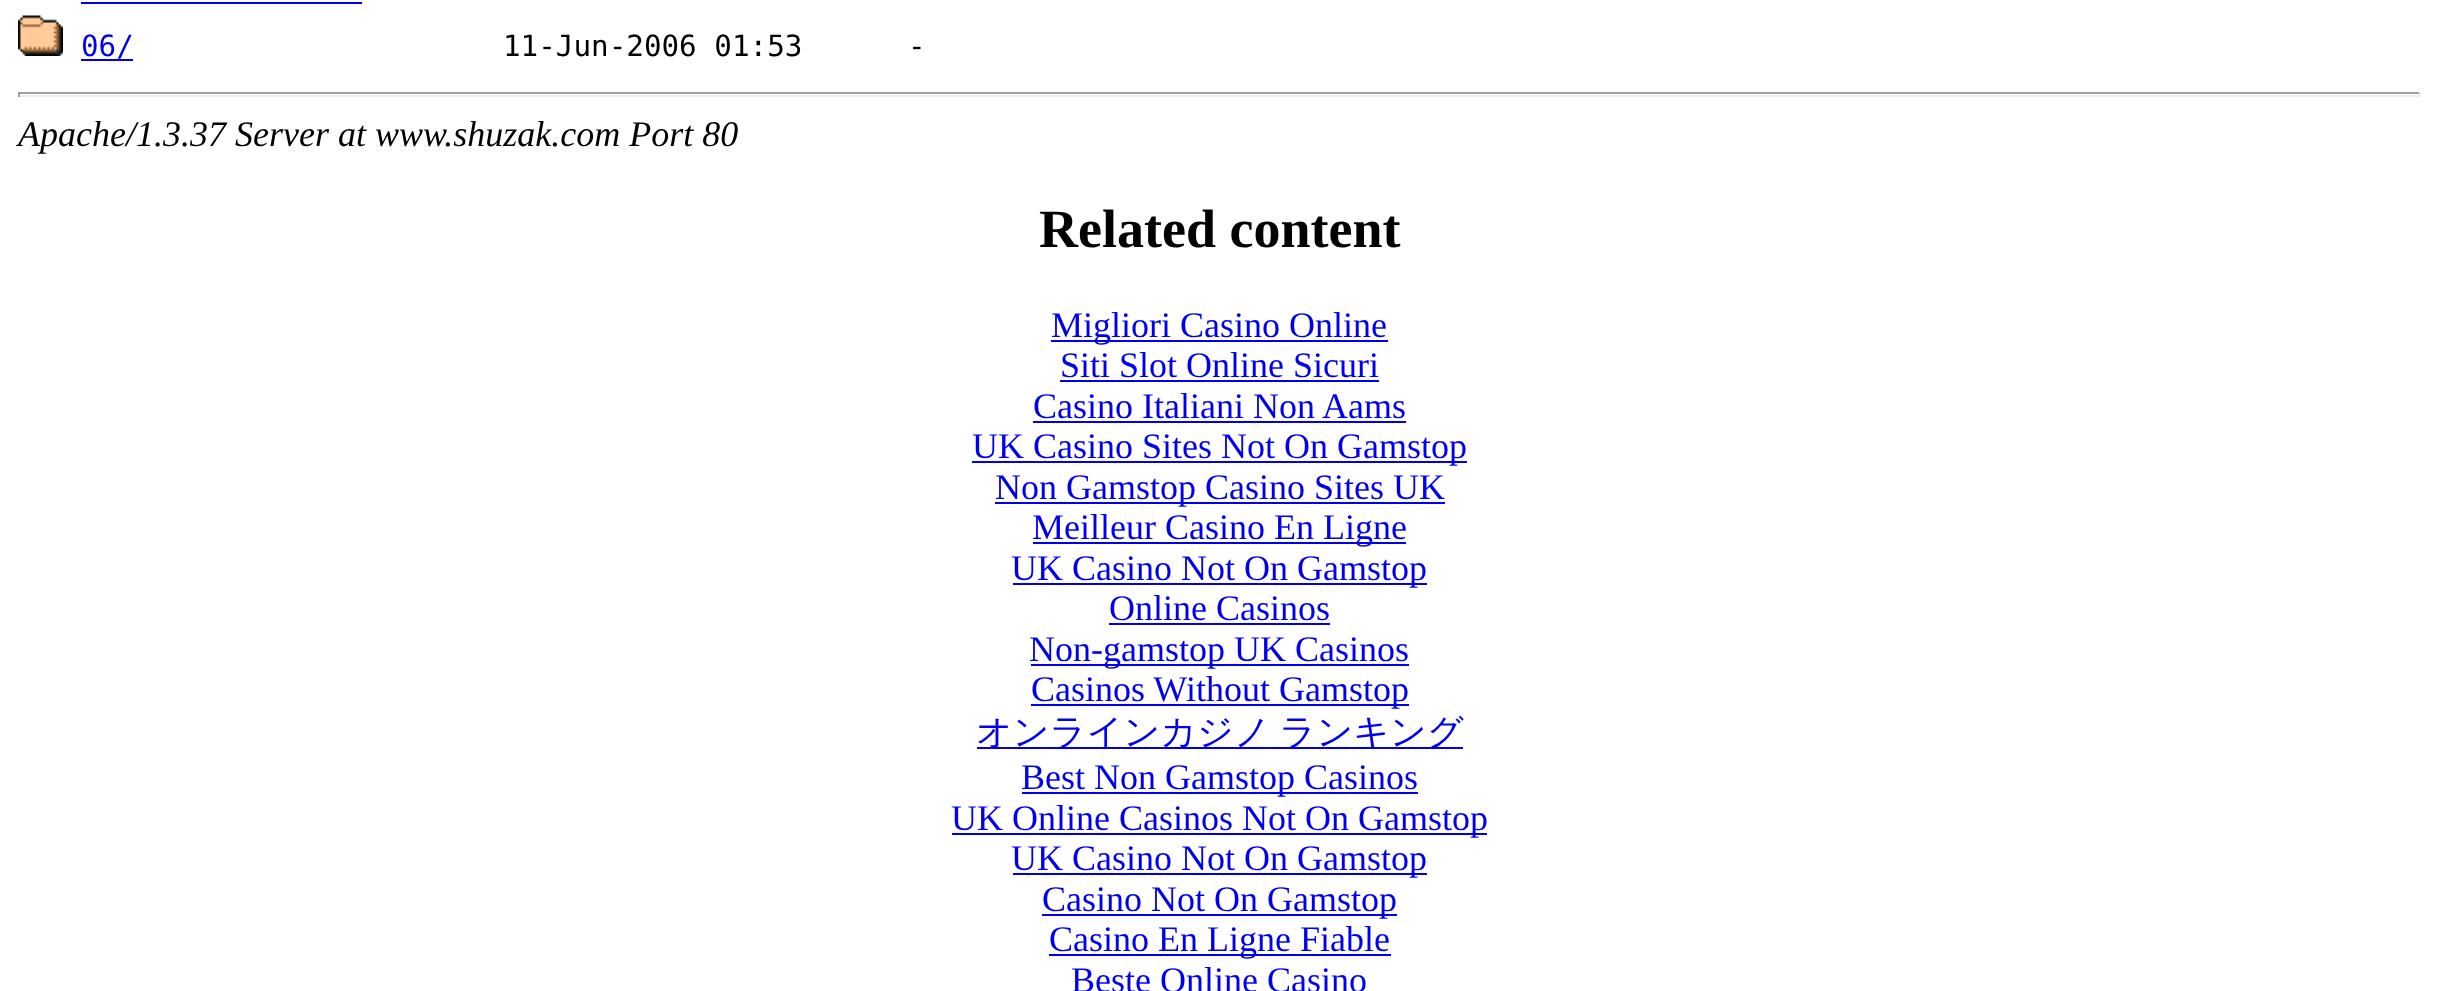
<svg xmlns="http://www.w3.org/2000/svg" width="2437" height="991">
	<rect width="100%" height="100%" fill="#FFFFFF" />
	<rect x="81" y="2" width="281" height="2" fill="#0000EE" />
	<image x="18" y="15" width="45" height="41" href="assets/img1.png" />
	<text x="81" y="56" font-family="DejaVu Sans Mono" font-size="29.25" fill="#0000EE">06/</text>
	<rect x="81" y="59" width="52" height="2" fill="#0000EE" />
	<text x="503" y="56" font-family="DejaVu Sans Mono" font-size="29.25" fill="#000000" xml:space="preserve">11-Jun-2006 01:53      -</text>
	<rect x="18" y="92" width="2403" height="2" fill="#9F9F9F" />
	<rect x="2419" y="92" width="2" height="5" fill="#EEEEEE" />
	<rect x="18" y="95" width="2403" height="2" fill="#EEEEEE" />
	<rect x="18" y="92" width="2" height="5" fill="#9F9F9F" />
	<text x="18" y="146" font-family="Liberation Serif" font-size="36" font-style="italic" fill="#000000">Apache/1.3.37 Server at www.shuzak.com Port 80</text>
	<text x="1039" y="247" font-family="Liberation Serif" font-size="54" font-weight="700" fill="#000000">Related content</text>
	<rect x="1051" y="340" width="337" height="2" fill="#0000EE" />
	<g font-family="Liberation Serif" font-size="36" fill="#0000EE">
		<text x="1051" y="337">Migliori Casino Online</text>
		<text x="1060" y="377">Siti Slot Online Sicuri</text>
	</g>
	<rect x="1060" y="380" width="319" height="2" fill="#0000EE" />
	<text x="1033" y="418" font-family="Liberation Serif" font-size="36" fill="#0000EE">Casino Italiani Non Aams</text>
	<rect x="1033" y="421" width="373" height="2" fill="#0000EE" />
	<rect x="972" y="461" width="495" height="2" fill="#0000EE" />
	<text x="972" y="458" font-family="Liberation Serif" font-size="36" fill="#0000EE">UK Casino Sites Not On Gamstop</text>
	<rect x="995" y="502" width="450" height="2" fill="#0000EE" />
	<text x="995" y="499" font-family="Liberation Serif" font-size="36" fill="#0000EE">Non Gamstop Casino Sites UK</text>
	<rect x="1033" y="542" width="373" height="2" fill="#0000EE" />
	<text x="1032" y="539" font-family="Liberation Serif" font-size="36" fill="#0000EE">Meilleur Casino En Ligne</text>
	<rect x="1013" y="583" width="414" height="2" fill="#0000EE" />
	<g font-family="Liberation Serif" font-size="36" fill="#0000EE">
		<text x="1011" y="580">UK Casino Not On Gamstop</text>
		<text x="1109" y="620">Online Casinos</text>
	</g>
	<rect x="1109" y="623" width="221" height="2" fill="#0000EE" />
	<rect x="1031" y="664" width="378" height="2" fill="#0000EE" />
	<text x="1029" y="661" font-family="Liberation Serif" font-size="36" fill="#0000EE">Non-gamstop UK Casinos</text>
	<rect x="1031" y="704" width="378" height="2" fill="#0000EE" />
	<text x="1031" y="701" font-family="Liberation Serif" font-size="36" fill="#0000EE">Casinos Without Gamstop</text>
	<rect x="977" y="747" width="486" height="2" fill="#0000EE" />
	<text x="976" y="744" word-spacing="-2" font-family="WenQuanYi Zen Hei" font-size="36" font-weight="500" fill="#0000EE">オンラインカジノ ランキング</text>
	<rect x="1022" y="792" width="396" height="2" fill="#0000EE" />
	<text x="1021" y="789" font-family="Liberation Serif" font-size="36" fill="#0000EE">Best Non Gamstop Casinos</text>
	<rect x="952" y="833" width="535" height="2" fill="#0000EE" />
	<text x="951" y="830" font-family="Liberation Serif" font-size="36" fill="#0000EE">UK Online Casinos Not On Gamstop</text>
	<rect x="1013" y="873" width="414" height="2" fill="#0000EE" />
	<text x="1011" y="870" font-family="Liberation Serif" font-size="36" fill="#0000EE">UK Casino Not On Gamstop</text>
	<rect x="1042" y="914" width="355" height="2" fill="#0000EE" />
	<text x="1042" y="911" font-family="Liberation Serif" font-size="36" fill="#0000EE">Casino Not On Gamstop</text>
	<rect x="1049" y="954" width="342" height="2" fill="#0000EE" />
	<g font-family="Liberation Serif" font-size="36" fill="#0000EE">
		<text x="1049" y="951">Casino En Ligne Fiable</text>
		<text x="1071" y="992">Beste Online Casino</text>
	</g>
</svg>
